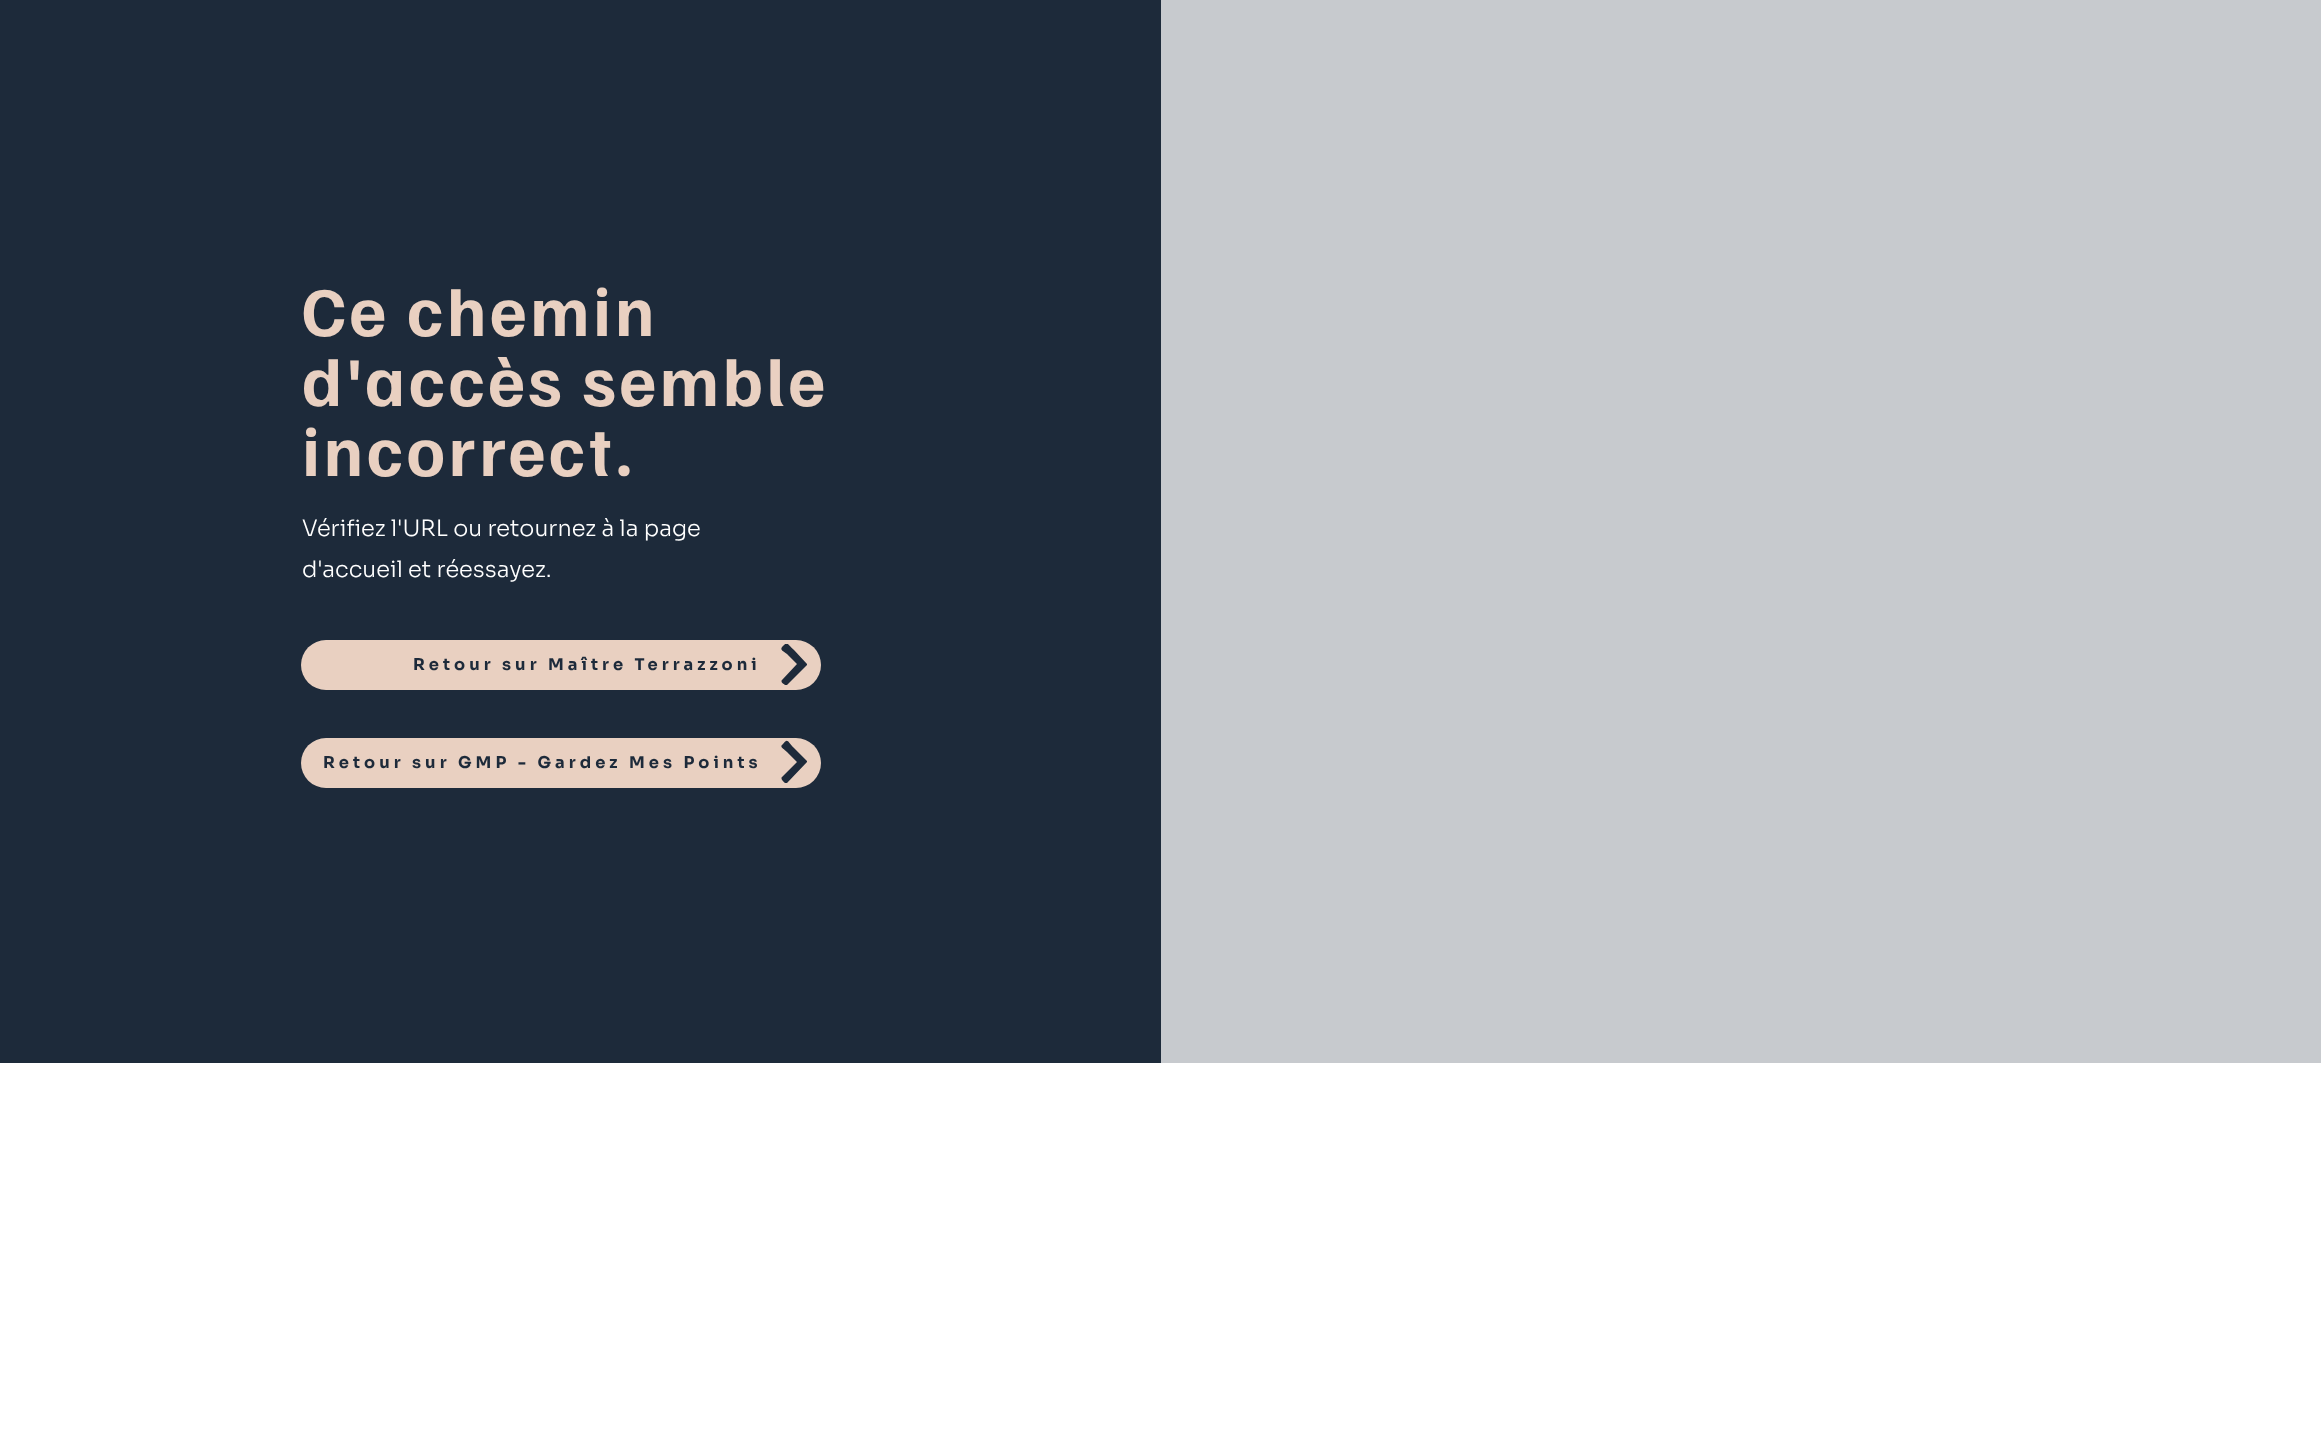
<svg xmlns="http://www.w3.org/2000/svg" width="2321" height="1443">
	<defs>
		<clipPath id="clip1"><rect x="771" y="644" width="47" height="42" /></clipPath>
	</defs>
	<rect width="100%" height="100%" fill="#FFFFFF" />
	<rect x="0" y="0" width="1161" height="1063" fill="#1D2A3A" />
	<g font-family="Familjen Grotesk" font-size="70" font-weight="700" letter-spacing="3.5" fill="#E9D0C1">
		<text x="302" y="336">Ce chemin</text>
		<text x="302" y="406">d'accès semble</text>
		<text x="302" y="476">incorrect.</text>
	</g>
	<g font-family="Sora" font-size="22.5" font-weight="300" fill="#FFFFFF">
		<text x="302" y="536">Vérifiez l'URL ou retournez à la page</text>
		<text x="302" y="577">d'accueil et réessayez.</text>
	</g>
	<rect x="301" y="640" width="520" height="50" rx="25" fill="#E9D0C1" />
	<text x="413" y="670" font-family="Sora" font-size="16.25" font-weight="700" letter-spacing="4.05" fill="#1D2A3A">Retour sur Maître Terrazzoni</text>
	<g clip-path="url(#clip1)">
		<path d="M807 664L794 650C787 644 788 641 783 646C779 650 783 651 787 654L797 664L782 680C780 682 784 684 785 685H787L807 665Z" fill="#1D2A3A" />
	</g>
	<rect x="301" y="738" width="520" height="50" rx="25" fill="#E9D0C1" />
	<text x="323" y="768" font-family="Sora" font-size="16.25" font-weight="700" letter-spacing="4.05" fill="#1D2A3A">Retour sur GMP - Gardez Mes Points</text>
	<path d="M807 761L794 748C787 741 788 738 783 744C779 747 783 748 787 752L797 762L782 777C780 779 784 782 785 783H787L807 762Z" fill="#1D2A3A" />
	<rect x="1161" y="0" width="1160" height="1063" fill="#C7CACE" />
</svg>
